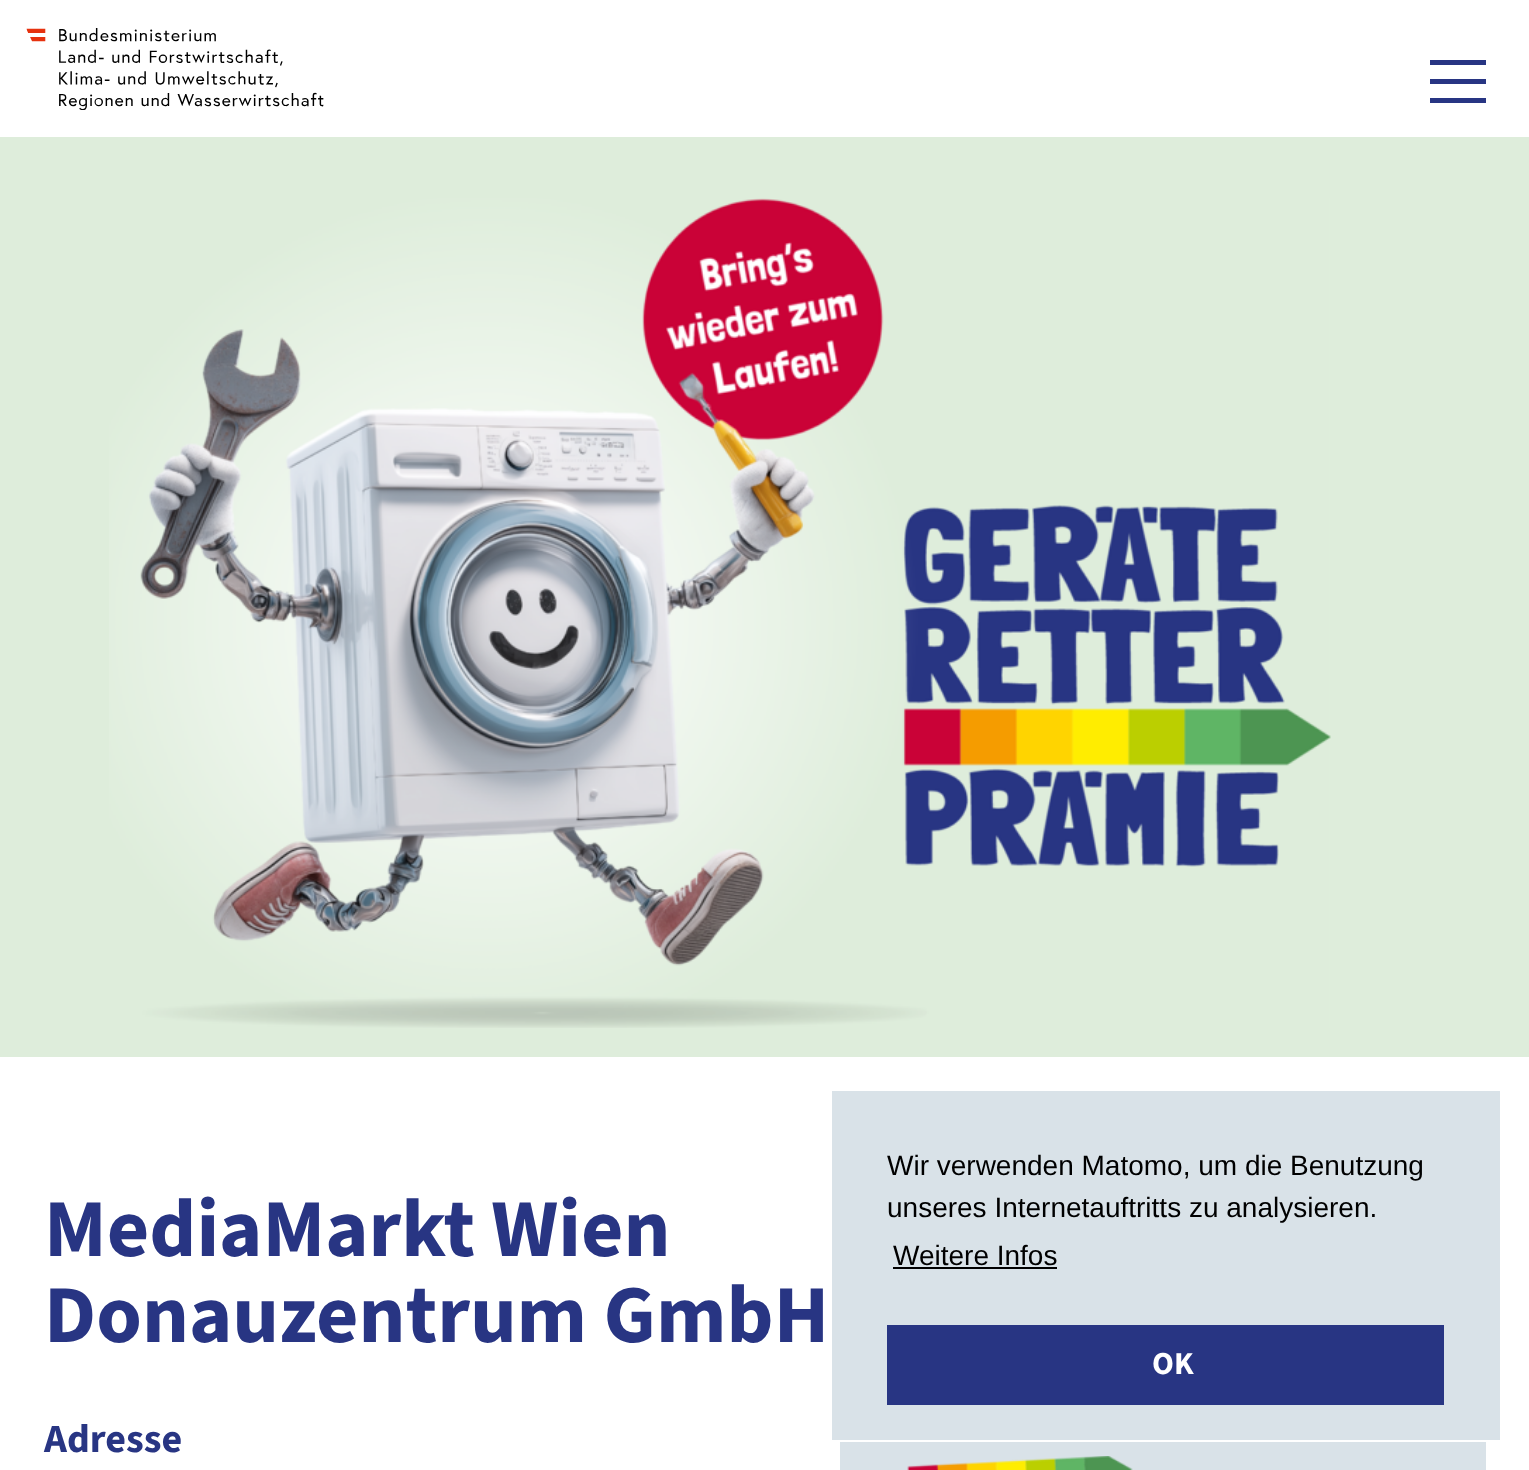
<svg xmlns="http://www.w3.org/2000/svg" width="1529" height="1470">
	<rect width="100%" height="100%" fill="#FFFFFF" />
	<image x="26" y="28" width="298" height="82" href="assets/img1.png" />
	<rect x="1430" y="79" width="56" height="5" fill="#283583" />
	<rect x="1430" y="60" width="56" height="5" fill="#283583" />
	<rect x="1430" y="98" width="56" height="5" fill="#283583" />
	<rect x="0" y="137" width="1529" height="920" fill="#DEEDDB" />
	<image x="109" y="198" width="1222" height="830" href="assets/img2.png" />
	<g font-family="'Source Sans 3'" font-size="82.25" font-weight="200" fill="#283583">
		<text x="44" y="1256">MediaMarkt Wien</text>
		<text x="44" y="1342">Donauzentrum GmbH</text>
	</g>
	<text x="44" y="1452" font-family="'Source Sans 3'" font-size="40" font-weight="200" fill="#283583">Adresse</text>
	<rect x="840" y="1442" width="646" height="28" fill="#D9E2E8" />
	<image x="907" y="1456" width="226" height="14" href="assets/img3.png" />
	<rect x="832" y="1091" width="668" height="349" fill="#D9E2E8" />
	<g font-family="Liberation Sans" font-size="28" fill="#000000">
		<text x="887" y="1175">Wir verwenden Matomo, um die Benutzung</text>
		<text x="887" y="1217">unseres Internetauftritts zu analysieren.</text>
		<text x="893" y="1265">Weitere Infos</text>
	</g>
	<rect x="893" y="1267" width="164" height="2" fill="#000000" />
	<rect x="887" y="1325" width="557" height="80" fill="#283583" />
	<text x="1152" y="1374" font-family="'Source Sans 3'" font-size="32" font-weight="200" fill="#FFFFFF">OK</text>
</svg>
